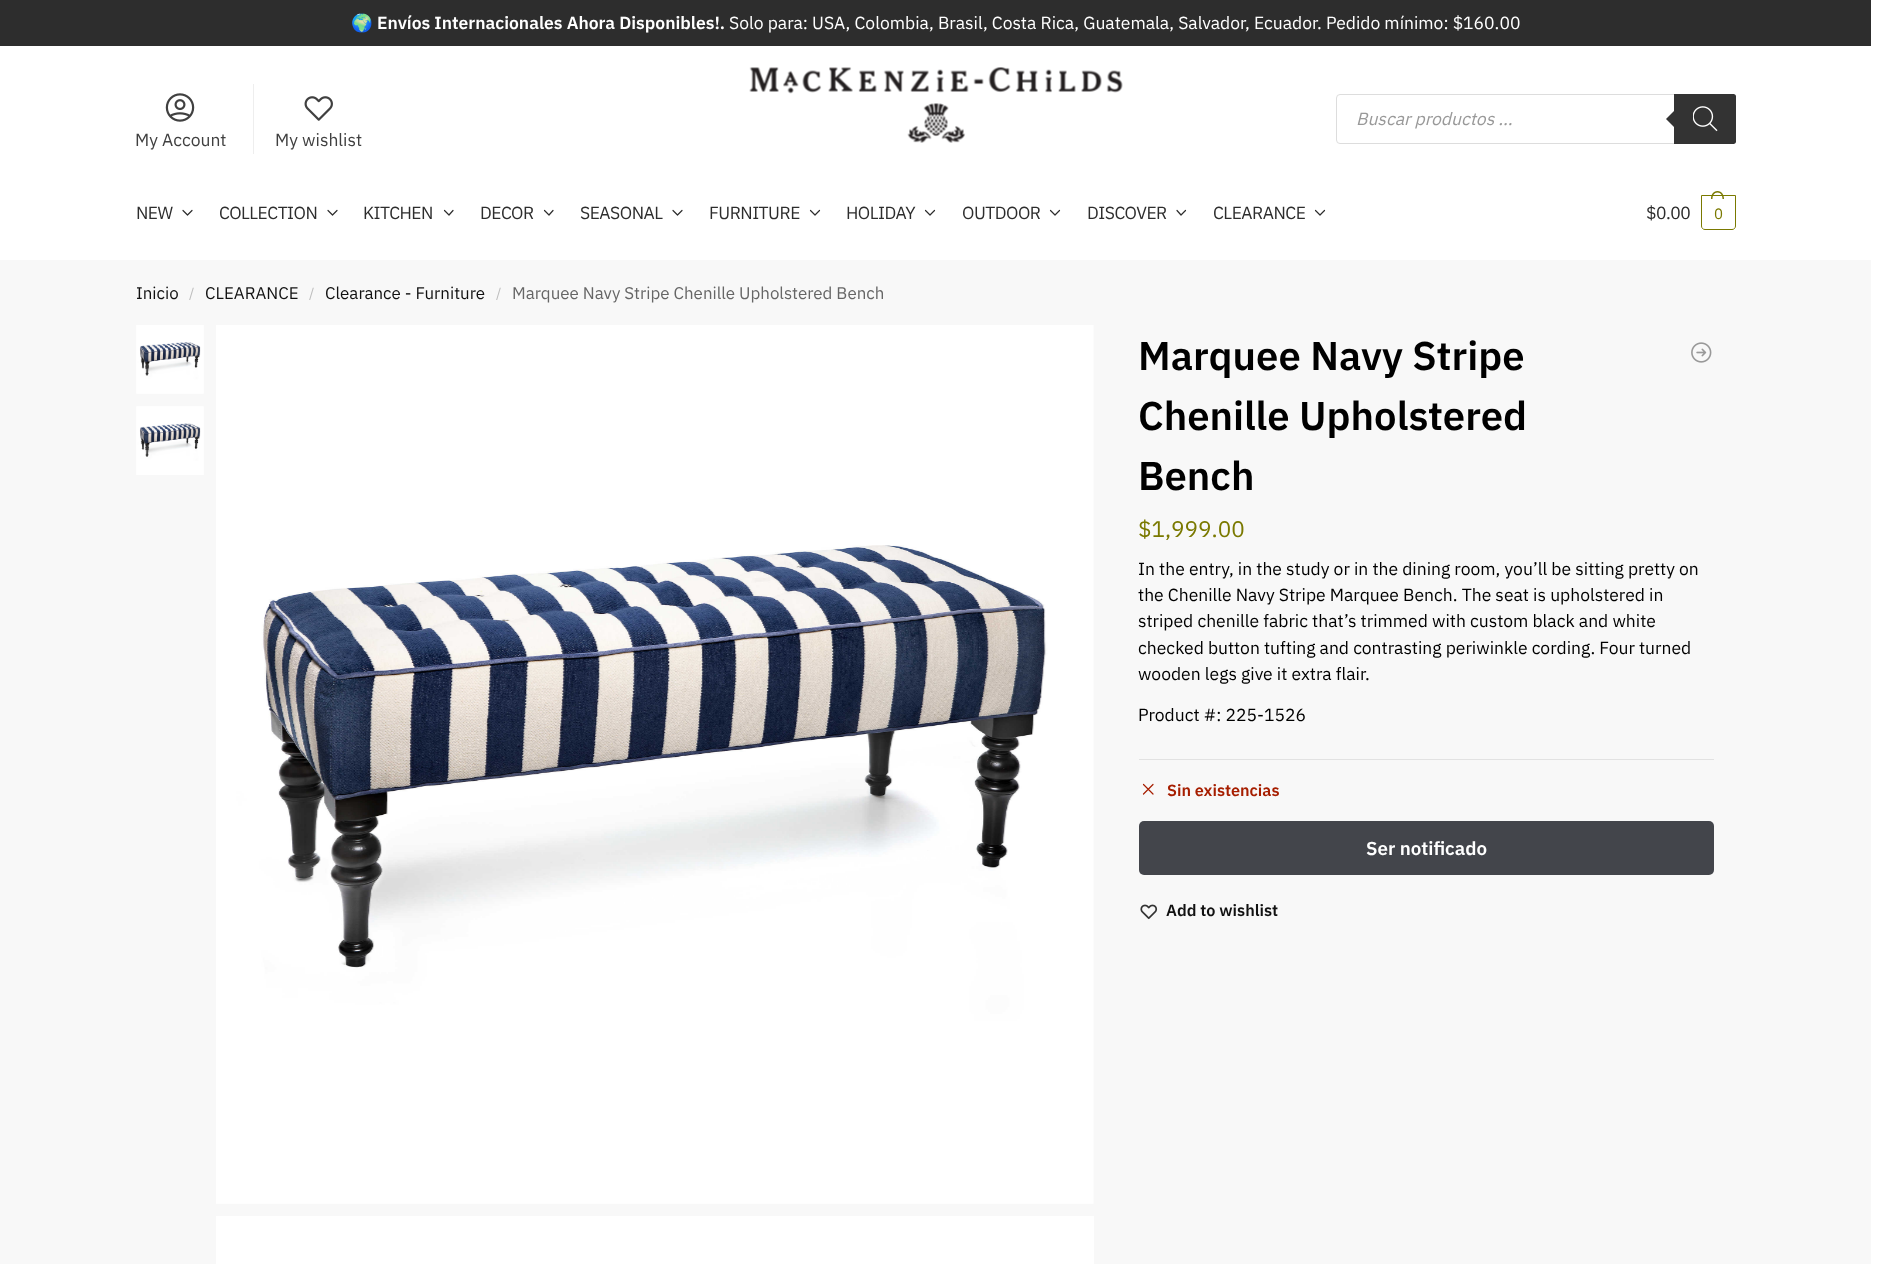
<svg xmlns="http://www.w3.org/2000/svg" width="1890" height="1264">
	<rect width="100%" height="100%" fill="#FFFFFF" />
	<rect x="0" y="0" width="1871" height="46" fill="#2D2D2D" />
	<text x="351" y="29" font-family="Noto Color Emoji" font-size="17.5" fill="#FFFFFF">🌍</text>
	<text x="377" y="29" font-family="IBM Plex Sans" font-size="17.5" font-weight="600" fill="#FFFFFF">Envíos Internacionales Ahora Disponibles!.</text>
	<text x="729" y="29" font-family="IBM Plex Sans" font-size="17.5" fill="#FFFFFF">Solo para: USA, Colombia, Brasil, Costa Rica, Guatemala, Salvador, Ecuador. Pedido mínimo: $160.00</text>
	<image x="749" y="67" width="374" height="76" href="assets/img1.png" />
	<rect x="1336.5" y="94.5" width="399" height="49" rx="3.5" fill="none" stroke="#DDDDDD" />
	<text x="1356" y="125" font-family="IBM Plex Sans" font-size="17.5" font-style="italic" fill="#999999">Buscar productos ...</text>
	<path d="M1674 94H1733.5C1735 94 1736 95 1736 96.5V141.5C1736 143 1735 144 1733.5 144H1674Z" fill="#333333" />
	<path d="M1676 109V129L1666 119Z" fill="#333333" />
	<image x="1693" y="106" width="25" height="26" href="assets/img2.png" />
	<image x="165" y="93" width="30" height="29" href="assets/img3.png" />
	<text x="135" y="146" font-family="IBM Plex Sans" font-size="17.5" fill="#404040">My Account</text>
	<rect x="253" y="84" width="1" height="70" fill="#EEEEEE" />
	<image x="304" y="96" width="29" height="25" href="assets/img4.png" />
	<text x="275" y="146" font-family="IBM Plex Sans" font-size="17.5" fill="#404040">My wishlist</text>
	<text x="136" y="219" font-family="IBM Plex Sans" font-size="17.5" letter-spacing="-0.5" fill="#2D2D2D">NEW</text>
	<path d="M192 210.5L187.5 215L183 210.5" fill="none" stroke="#2D2D2D" stroke-width="1.2" stroke-linecap="round" stroke-linejoin="round" />
	<text x="219" y="219" font-family="IBM Plex Sans" font-size="17.5" letter-spacing="-0.5" fill="#2D2D2D">COLLECTION</text>
	<path d="M337 210.5L332.5 215L328 210.5" fill="none" stroke="#2D2D2D" stroke-width="1.2" stroke-linecap="round" stroke-linejoin="round" />
	<text x="363" y="219" font-family="IBM Plex Sans" font-size="17.5" letter-spacing="-0.5" fill="#2D2D2D">KITCHEN</text>
	<path d="M453 210.5L449 215L444.5 210.5" fill="none" stroke="#2D2D2D" stroke-width="1.2" stroke-linecap="round" stroke-linejoin="round" />
	<text x="480" y="219" font-family="IBM Plex Sans" font-size="17.5" letter-spacing="-0.5" fill="#2D2D2D">DECOR</text>
	<path d="M553 210.5L549 215L544.5 210.5" fill="none" stroke="#2D2D2D" stroke-width="1.2" stroke-linecap="round" stroke-linejoin="round" />
	<text x="580" y="219" font-family="IBM Plex Sans" font-size="17.5" letter-spacing="-0.5" fill="#2D2D2D">SEASONAL</text>
	<path d="M682 210.5L677.5 215L673 210.5" fill="none" stroke="#2D2D2D" stroke-width="1.2" stroke-linecap="round" stroke-linejoin="round" />
	<text x="709" y="219" font-family="IBM Plex Sans" font-size="17.5" letter-spacing="-0.5" fill="#2D2D2D">FURNITURE</text>
	<path d="M819.5 210.5L815 215L810.5 210.5" fill="none" stroke="#2D2D2D" stroke-width="1.2" stroke-linecap="round" stroke-linejoin="round" />
	<text x="846" y="219" font-family="IBM Plex Sans" font-size="17.5" letter-spacing="-0.5" fill="#2D2D2D">HOLIDAY</text>
	<path d="M934.5 210.5L930 215L925.5 210.5" fill="none" stroke="#2D2D2D" stroke-width="1.2" stroke-linecap="round" stroke-linejoin="round" />
	<text x="962" y="219" font-family="IBM Plex Sans" font-size="17.5" letter-spacing="-0.5" fill="#2D2D2D">OUTDOOR</text>
	<path d="M1059.5 210.5L1055 215L1050.5 210.5" fill="none" stroke="#2D2D2D" stroke-width="1.2" stroke-linecap="round" stroke-linejoin="round" />
	<text x="1087" y="219" font-family="IBM Plex Sans" font-size="17.5" letter-spacing="-0.5" fill="#2D2D2D">DISCOVER</text>
	<path d="M1185.5 210.5L1181 215L1177 210.5" fill="none" stroke="#2D2D2D" stroke-width="1.2" stroke-linecap="round" stroke-linejoin="round" />
	<text x="1213" y="219" font-family="IBM Plex Sans" font-size="17.5" letter-spacing="-0.5" fill="#2D2D2D">CLEARANCE</text>
	<path d="M1324.5 210.5L1320 215L1315.5 210.5" fill="none" stroke="#2D2D2D" stroke-width="1.2" stroke-linecap="round" stroke-linejoin="round" />
	<text x="1646" y="219" font-family="IBM Plex Sans" font-size="17.5" letter-spacing="-0.5" fill="#2D2D2D">$0.00</text>
	<path d="M1701.5 195.5H1735.5V226C1735.5 228 1734 229.5 1732 229.5H1705C1703 229.5 1701.5 228 1701.5 226Z" fill="none" stroke="#7A7900" />
	<path d="M1717.5 191C1722 191 1724 195 1724 199H1711C1711 195 1713 191 1717.5 191ZM1717.5 192.5C1721 192.5 1722.5 195.5 1722.5 199H1712.5C1712.5 195.5 1714 192.5 1717.5 192.5Z" fill="#7A7900" fill-rule="evenodd" />
	<text x="1714" y="219" font-family="IBM Plex Sans" font-size="15" letter-spacing="-1" fill="#7A7900">0</text>
	<rect x="0" y="260" width="1871" height="1004" fill="#F8F8F8" />
	<text x="136" y="299" font-family="IBM Plex Sans" font-size="16.9" fill="#111111">Inicio</text>
	<text x="189" y="298" font-family="IBM Plex Sans" font-size="14" fill="#BEBEBE">/</text>
	<text x="205" y="299" font-family="IBM Plex Sans" font-size="16.9" fill="#111111">CLEARANCE</text>
	<text x="309" y="298" font-family="IBM Plex Sans" font-size="14" fill="#BEBEBE">/</text>
	<text x="325" y="299" font-family="IBM Plex Sans" font-size="16.9" fill="#111111">Clearance - Furniture</text>
	<text x="496" y="298" font-family="IBM Plex Sans" font-size="14" fill="#BEBEBE">/</text>
	<text x="512" y="299" font-family="IBM Plex Sans" font-size="16.9" fill="#666666">Marquee Navy Stripe Chenille Upholstered Bench</text>
	<image x="136" y="325" width="68" height="69" href="assets/img5.png" />
	<image x="136" y="406" width="68" height="69" href="assets/img6.png" />
	<image x="216" y="325" width="878" height="879" href="assets/img7.png" />
	<rect x="216" y="1216" width="878" height="48" fill="#FFFFFF" />
	<g font-family="IBM Plex Sans" font-size="40" font-weight="600" fill="#000000">
		<text x="1138" y="370">Marquee Navy Stripe</text>
		<text x="1138" y="430">Chenille Upholstered</text>
		<text x="1138" y="490">Bench</text>
	</g>
	<image x="1691" y="342" width="21" height="21" href="assets/img8.png" />
	<text x="1138" y="537" font-family="IBM Plex Sans" font-size="22.5" fill="#7A7900">$1,999.00</text>
	<g font-family="IBM Plex Sans" font-size="17.5" fill="#000000">
		<text x="1138" y="575">In the entry, in the study or in the dining room, you’ll be sitting pretty on</text>
		<text x="1138" y="601">the Chenille Navy Stripe Marquee Bench. The seat is upholstered in</text>
		<text x="1138" y="627">striped chenille fabric that’s trimmed with custom black and white</text>
		<text x="1138" y="654">checked button tufting and contrasting periwinkle cording. Four turned</text>
		<text x="1138" y="680">wooden legs give it extra flair.</text>
		<text x="1138" y="721">Product #: 225-1526</text>
	</g>
	<rect x="1139" y="759" width="575" height="1" fill="#E2E2E2" />
	<path d="M1143.5 794L1153 784.5M1143.5 784.5L1153 794" fill="none" stroke="#A61E00" stroke-width="1.2" stroke-linecap="round" stroke-linejoin="round" />
	<text x="1167" y="796" font-family="IBM Plex Sans" font-size="16.25" font-weight="600" fill="#A61E00">Sin existencias</text>
	<rect x="1139" y="821" width="575" height="54" rx="5" fill="#43454B" />
	<text x="1366" y="855" font-family="IBM Plex Sans" font-size="18.75" font-weight="600" fill="#FFFFFF">Ser notificado</text>
	<image x="1140" y="904" width="18" height="16" href="assets/img9.png" />
	<text x="1166" y="916" font-family="IBM Plex Sans" font-size="16.25" font-weight="600" fill="#111111">Add to wishlist</text>
</svg>
